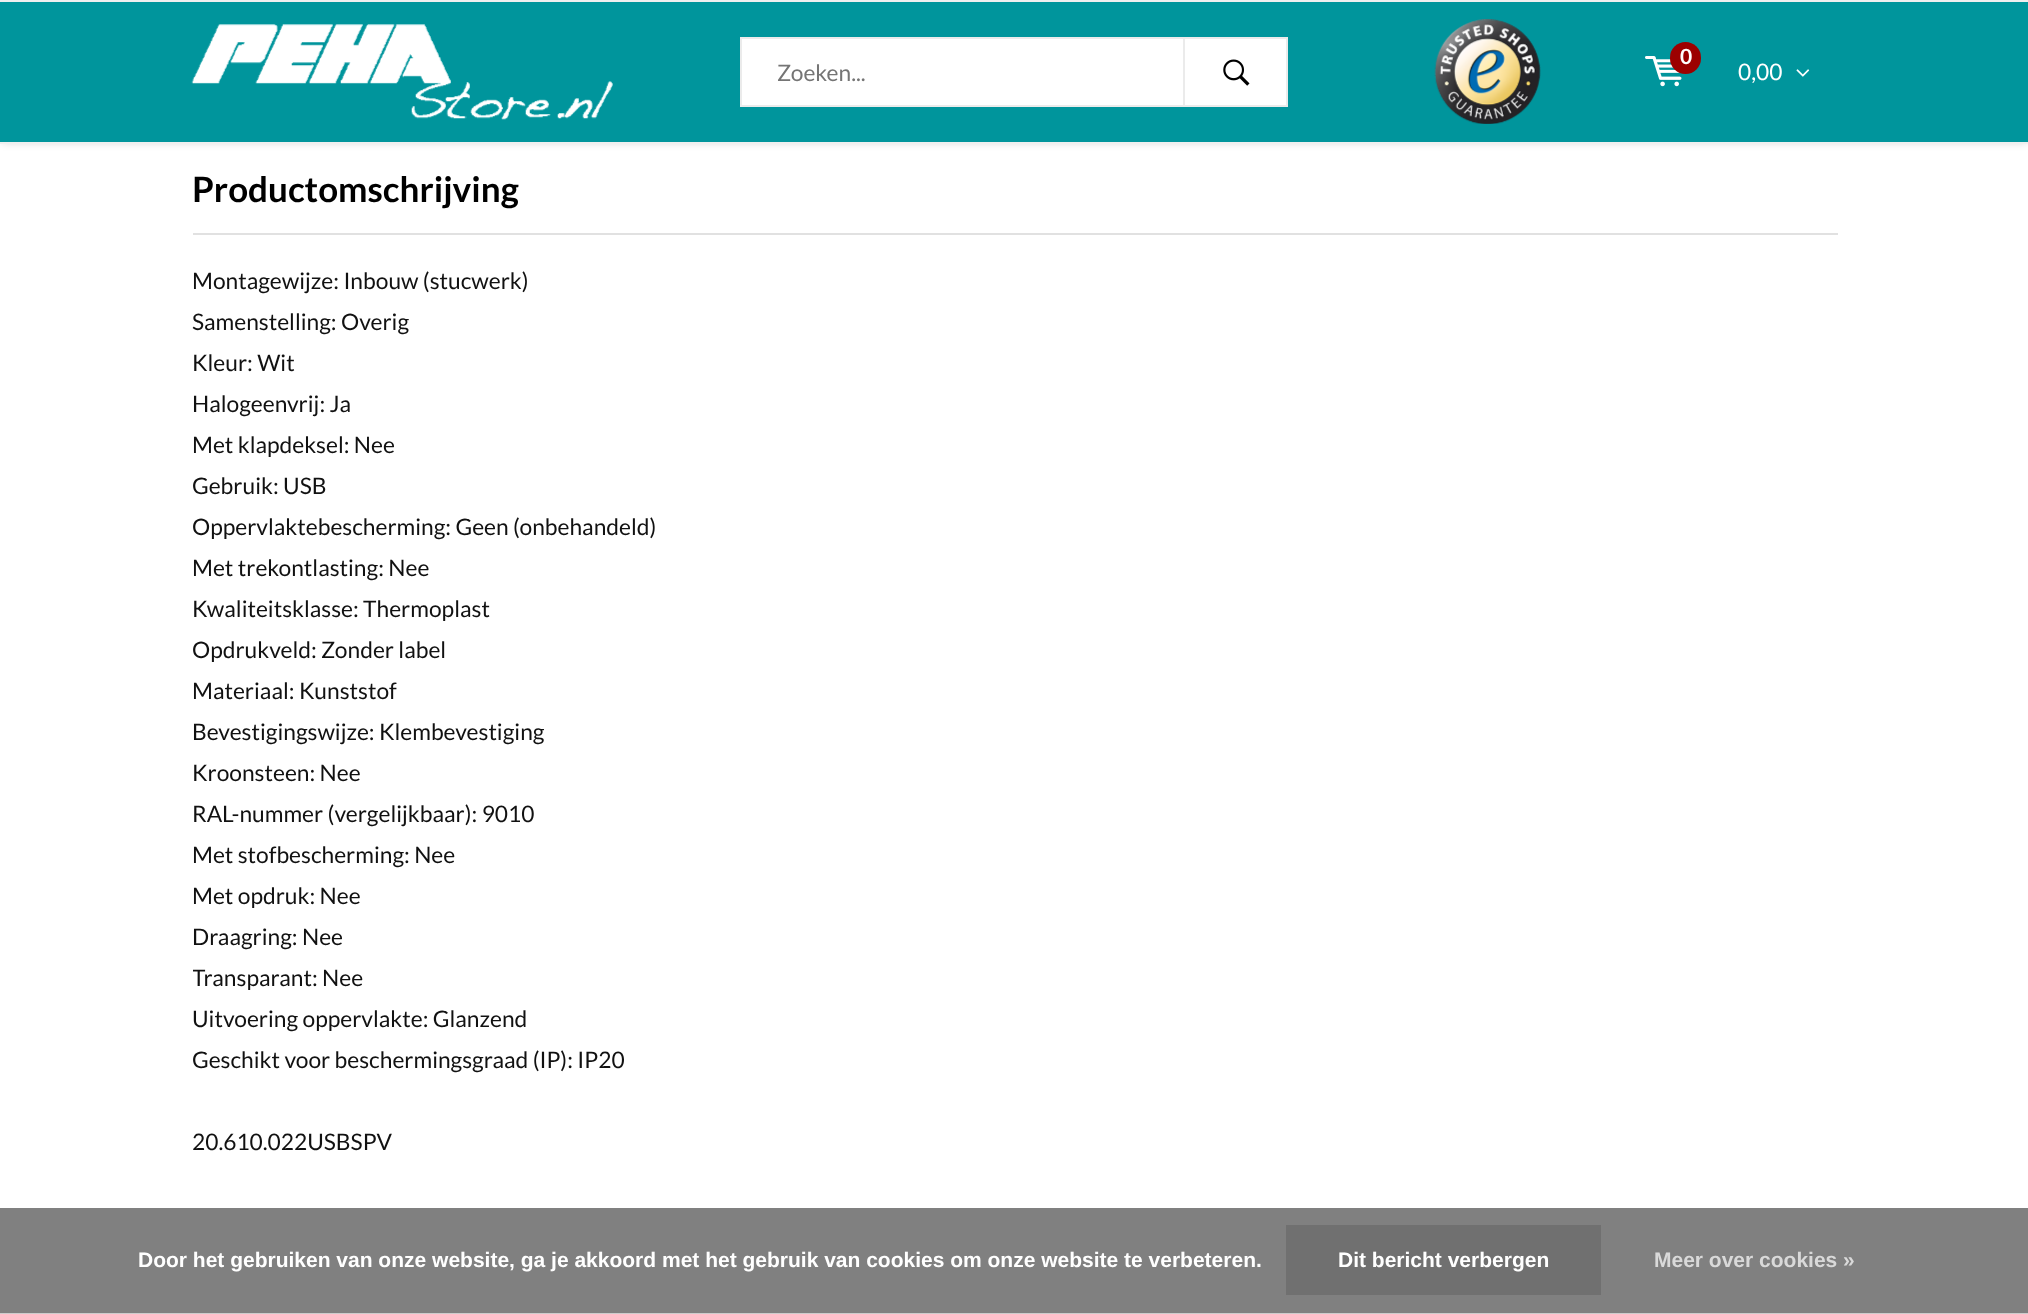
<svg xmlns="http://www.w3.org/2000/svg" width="2028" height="1314">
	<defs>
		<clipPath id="clip1"><rect x="193" y="261" width="1645" height="901" /></clipPath>
	</defs>
	<rect width="100%" height="100%" fill="#FFFFFF" />
	<rect x="2" y="2" width="2025" height="140" fill="#000000" fill-opacity="0.2" filter="blur(4.5px)" />
	<rect x="0" y="2" width="2028" height="140" fill="#00959C" />
	<rect x="0" y="0" width="2028" height="2" fill="#EFEFEF" />
	<rect x="0" y="142" width="2028" height="2" fill="#EFEFEF" />
	<image x="191" y="24" width="422" height="96" href="assets/img1.png" />
	<rect x="741" y="38" width="546" height="68" fill="#FFFFFF" stroke="#EBEBEB" stroke-width="2" />
	<text x="777" y="81" font-family="Lato" font-size="22.75" fill="#757575">Zoeken...</text>
	<rect x="1183" y="37" width="2" height="70" fill="#EBEBEB" />
	<image x="1223" y="59" width="27" height="27" href="assets/img2.png" />
	<image x="1434" y="19" width="107" height="105" href="assets/img3.png" />
	<image x="1645" y="56" width="37" height="31" href="assets/img4.png" />
	<rect x="1670" y="42" width="31" height="32" rx="15.5" fill="#9C0000" />
	<text x="1680" y="64" font-family="Lato" font-size="21" font-weight="700" fill="#FFFFFF">0</text>
	<text x="1738" y="80" font-family="Lato" font-size="22.75" fill="#FFFFFF">0,00</text>
	<image x="1796" y="69" width="14" height="8" href="assets/img5.png" />
	<rect x="193" y="233" width="1645" height="2" fill="#E1E1E1" />
	<text x="192" y="202" font-family="Lato" font-size="35" font-weight="700" fill="#000000">Productomschrijving</text>
	<g font-family="Lato" font-size="22.75" fill="#111111">
		<text x="192" y="289">Montagewijze: Inbouw (stucwerk)</text>
		<text x="192" y="330">Samenstelling: Overig</text>
		<text x="192" y="371">Kleur: Wit</text>
		<text x="192" y="412">Halogeenvrij: Ja</text>
		<text x="192" y="453">Met klapdeksel: Nee</text>
	</g>
	<g clip-path="url(#clip1)">
		<g font-family="Lato" font-size="22.75" fill="#111111">
			<text x="192" y="494">Gebruik: USB</text>
			<text x="192" y="535">Oppervlaktebescherming: Geen (onbehandeld)</text>
		</g>
	</g>
	<g font-family="Lato" font-size="22.75" fill="#111111">
		<text x="192" y="576">Met trekontlasting: Nee</text>
		<text x="192" y="617">Kwaliteitsklasse: Thermoplast</text>
	</g>
	<g clip-path="url(#clip1)">
		<text x="192" y="658" font-family="Lato" font-size="22.75" fill="#111111">Opdrukveld: Zonder label</text>
	</g>
	<g font-family="Lato" font-size="22.75" fill="#111111">
		<text x="192" y="699">Materiaal: Kunststof</text>
		<text x="192" y="740">Bevestigingswijze: Klembevestiging</text>
		<text x="192" y="781">Kroonsteen: Nee</text>
		<text x="192" y="822">RAL-nummer (vergelijkbaar): 9010</text>
		<text x="192" y="863">Met stofbescherming: Nee</text>
		<text x="192" y="904">Met opdruk: Nee</text>
		<text x="192" y="945">Draagring: Nee</text>
	</g>
	<g clip-path="url(#clip1)">
		<text x="192" y="986" font-family="Lato" font-size="22.75" fill="#111111">Transparant: Nee</text>
	</g>
	<text x="192" y="1027" font-family="Lato" font-size="22.75" fill="#111111">Uitvoering oppervlakte: Glanzend</text>
	<g clip-path="url(#clip1)">
		<text x="192" y="1068" font-family="Lato" font-size="22.75" fill="#111111">Geschikt voor beschermingsgraad (IP): IP20</text>
	</g>
	<text x="192" y="1150" font-family="Lato" font-size="22.75" fill="#111111">20.610.022USBSPV</text>
	<rect x="0" y="1208" width="2028" height="105" fill="#808080" />
	<rect x="0" y="1313" width="2028" height="1" fill="#CCCCCC" />
	<text x="138" y="1267" font-family="Liberation Sans" font-size="21" font-weight="700" fill="#FFFFFF">Door het gebruiken van onze website, ga je akkoord met het gebruik van cookies om onze website te verbeteren.</text>
	<rect x="1286" y="1225" width="315" height="70" fill="#707070" />
	<text x="1338" y="1267" font-family="Liberation Sans" font-size="21" font-weight="700" fill="#FFFFFF">Dit bericht verbergen</text>
	<text x="1654" y="1267" font-family="Liberation Sans" font-size="21" font-weight="700" fill="#D9D9D9">Meer over cookies »</text>
</svg>
